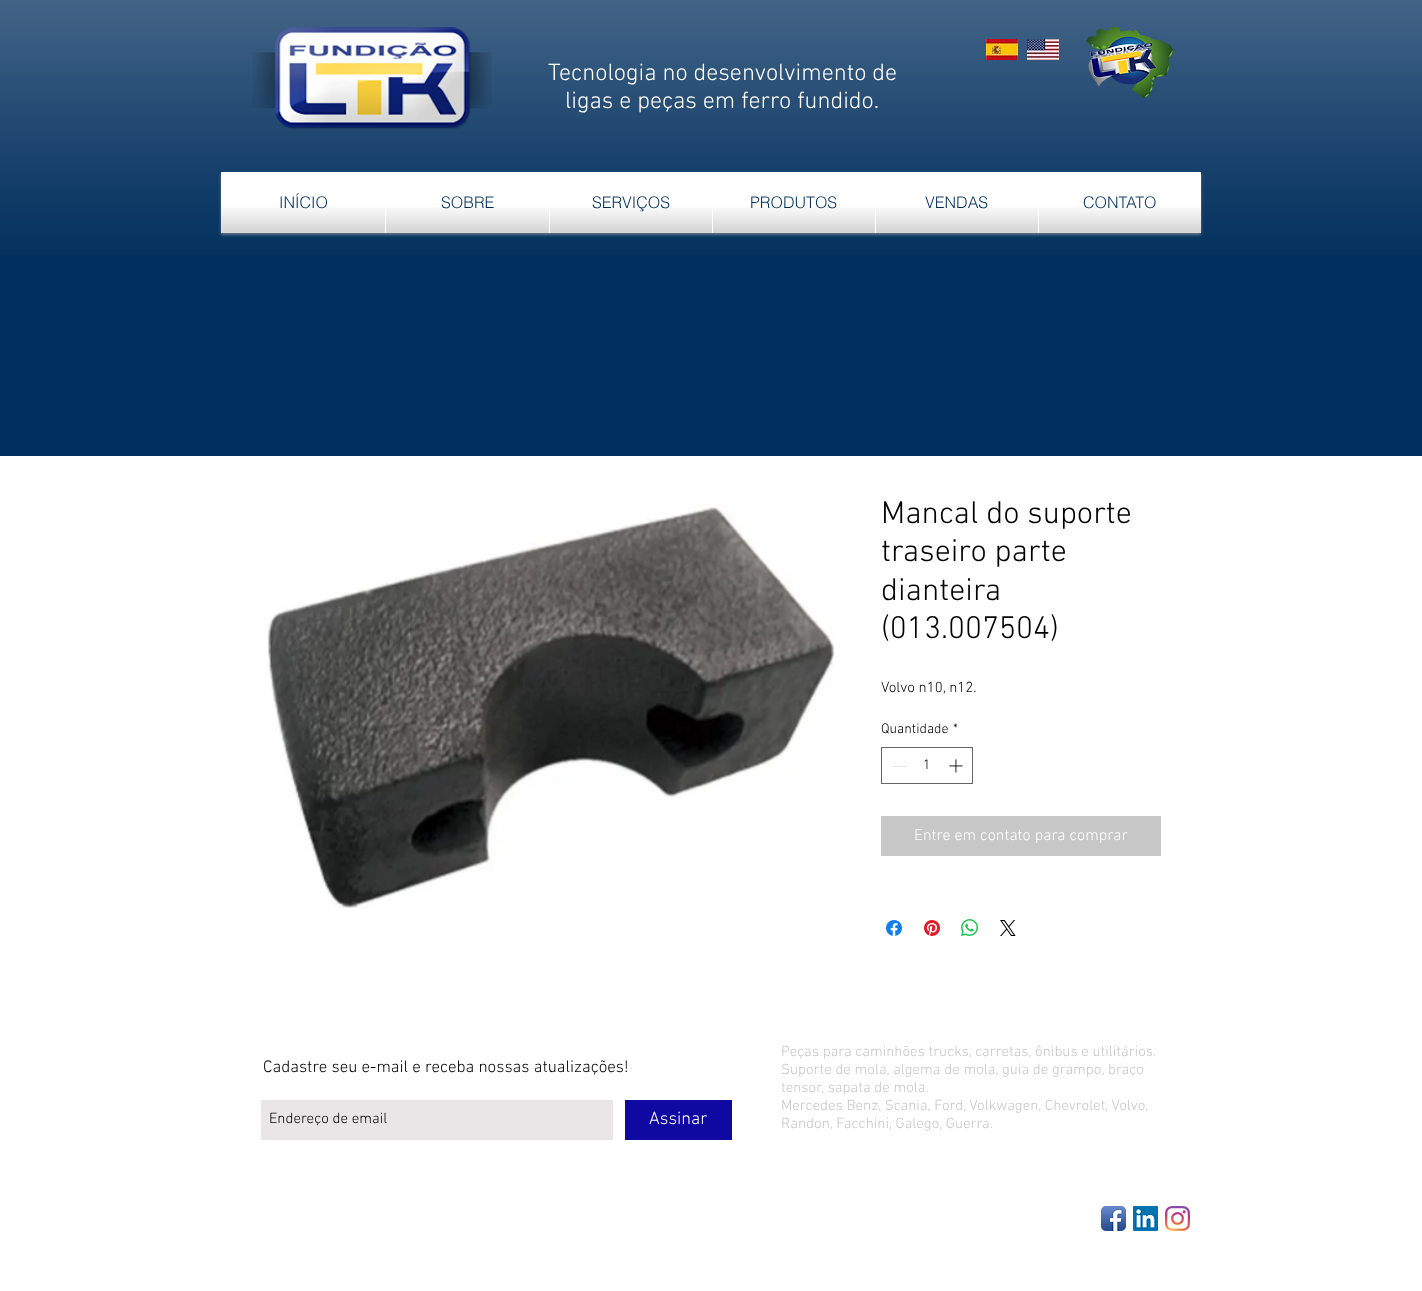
<svg xmlns="http://www.w3.org/2000/svg" width="1422" height="1291">
	<rect width="100%" height="100%" fill="#FFFFFF" />
	<rect x="0" y="0" width="1422" height="456" fill="#002E5D" />
	<image x="0" y="0" width="1422" height="254" href="assets/img1.png" />
	<image x="252" y="27" width="240" height="103" href="assets/img2.png" />
	<image x="986" y="39" width="32" height="21" href="assets/img3.png" />
	<image x="1027" y="39" width="32" height="21" href="assets/img4.png" />
	<image x="1086" y="27" width="87" height="71" href="assets/img5.png" />
	<g font-family="'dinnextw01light'" font-size="24" font-weight="300" fill="#FFFFFF">
		<text x="548" y="80">Tecnologia no desenvolvimento de</text>
		<text x="565" y="108">ligas e peças em ferro fundido.</text>
	</g>
	<rect x="221" y="174" width="980" height="61" fill="#A29E9E" fill-opacity="0.6" filter="blur(1.5px)" />
	<rect x="221" y="172" width="980" height="61" fill="#FFFFFF" />
	<text x="279" y="208" font-family="helvetica" font-size="16" font-weight="300" fill="#002E5D">INÍCIO</text>
	<image x="280" y="193" width="47" height="12" href="assets/img6.png" />
	<image x="221" y="207" width="164" height="26" href="assets/img7.png" />
	<text x="441" y="208" font-family="helvetica" font-size="16" font-weight="300" fill="#002E5D">SOBRE</text>
	<image x="442" y="196" width="51" height="9" href="assets/img8.png" />
	<image x="386" y="207" width="163" height="26" href="assets/img9.png" />
	<text x="592" y="208" font-family="helvetica" font-size="16" font-weight="300" fill="#002E5D">SERVIÇOS</text>
	<image x="593" y="196" width="76" height="9" href="assets/img10.png" />
	<image x="550" y="207" width="162" height="26" href="assets/img11.png" />
	<text x="750" y="208" font-family="helvetica" font-size="16" font-weight="300" fill="#002E5D">PRODUTOS</text>
	<image x="751" y="196" width="86" height="9" href="assets/img12.png" />
	<image x="713" y="207" width="162" height="26" href="assets/img13.png" />
	<text x="925" y="208" font-family="helvetica" font-size="16" font-weight="300" fill="#002E5D">VENDAS</text>
	<image x="926" y="196" width="62" height="9" href="assets/img14.png" />
	<image x="876" y="207" width="162" height="26" href="assets/img15.png" />
	<text x="1083" y="208" font-family="helvetica" font-size="16" font-weight="300" fill="#002E5D">CONTATO</text>
	<image x="1084" y="196" width="72" height="9" href="assets/img16.png" />
	<image x="1039" y="207" width="162" height="26" href="assets/img17.png" />
	<image x="266" y="504" width="569" height="405" href="assets/img18.png" />
	<g font-family="'dinnextw01light'" font-size="32" font-weight="300" fill="#000000">
		<text x="881" y="523">Mancal do suporte</text>
		<text x="881" y="561">traseiro parte</text>
		<text x="881" y="600">dianteira</text>
		<text x="881" y="638">(013.007504)</text>
	</g>
	<text x="881" y="692" font-family="'dinnextw01light'" font-size="15" font-weight="300" fill="#000000">Volvo n10, n12.</text>
	<g font-family="'dinnextw01light'" font-size="14" font-weight="300" fill="#000000">
		<text x="881" y="733">Quantidade</text>
		<text x="953" y="733">*</text>
	</g>
	<rect x="881.5" y="747.5" width="91" height="36" fill="none" stroke="#666666" />
	<rect x="893" y="766" width="13" height="1" fill="#E3E3E3" />
	<text x="923" y="769" font-family="'dinnextw01light'" font-size="14" font-weight="300" fill="#000000">1</text>
	<image x="949" y="759" width="14" height="14" href="assets/img19.png" />
	<rect x="881" y="816" width="280" height="40" fill="#C7C7C7" />
	<text x="914" y="840" font-family="'dinnextw01light'" font-size="16" font-weight="300" fill="#FFFFFF">Entre em contato para comprar</text>
	<image x="886" y="920" width="16" height="16" href="assets/img20.png" />
	<image x="924" y="920" width="16" height="16" href="assets/img21.png" />
	<image x="961" y="919" width="17" height="17" href="assets/img22.png" />
	<image x="1000" y="920" width="16" height="16" href="assets/img23.png" />
	<text x="263" y="1072" font-family="'dinnextw01light'" font-size="17" font-weight="300" fill="#000000">Cadastre seu e-mail e receba nossas atualizações!</text>
	<rect x="261" y="1100" width="352" height="40" fill="#E8E6E6" />
	<text x="269" y="1123" font-family="'dinnextw01light'" font-size="15" font-weight="300" fill="#000000">Endereço de email</text>
	<rect x="625" y="1100" width="107" height="40" fill="#0F09A1" />
	<text x="649" y="1124" font-family="'dinnextw01light'" font-size="18" font-weight="300" fill="#FFFFFF">Assinar</text>
	<g font-family="'dinnextw01light'" font-size="15" font-weight="300" fill="#C7C7C7">
		<text x="781" y="1056">Peças para caminhões trucks, carretas, ônibus e utilitários.</text>
		<text x="781" y="1074">Suporte de mola, algema de mola, guia de grampo, braço</text>
		<text x="781" y="1092">tensor, sapata de mola.</text>
		<text x="781" y="1110">Mercedes Benz, Scania, Ford, Volkwagen, Chevrolet, Volvo,</text>
		<text x="781" y="1128">Randon, Facchini, Galego, Guerra.</text>
	</g>
	<image x="1101" y="1206" width="25" height="25" href="assets/img24.png" />
	<image x="1133" y="1206" width="25" height="25" href="assets/img25.png" />
	<image x="1165" y="1206" width="25" height="25" href="assets/img26.png" />
</svg>
